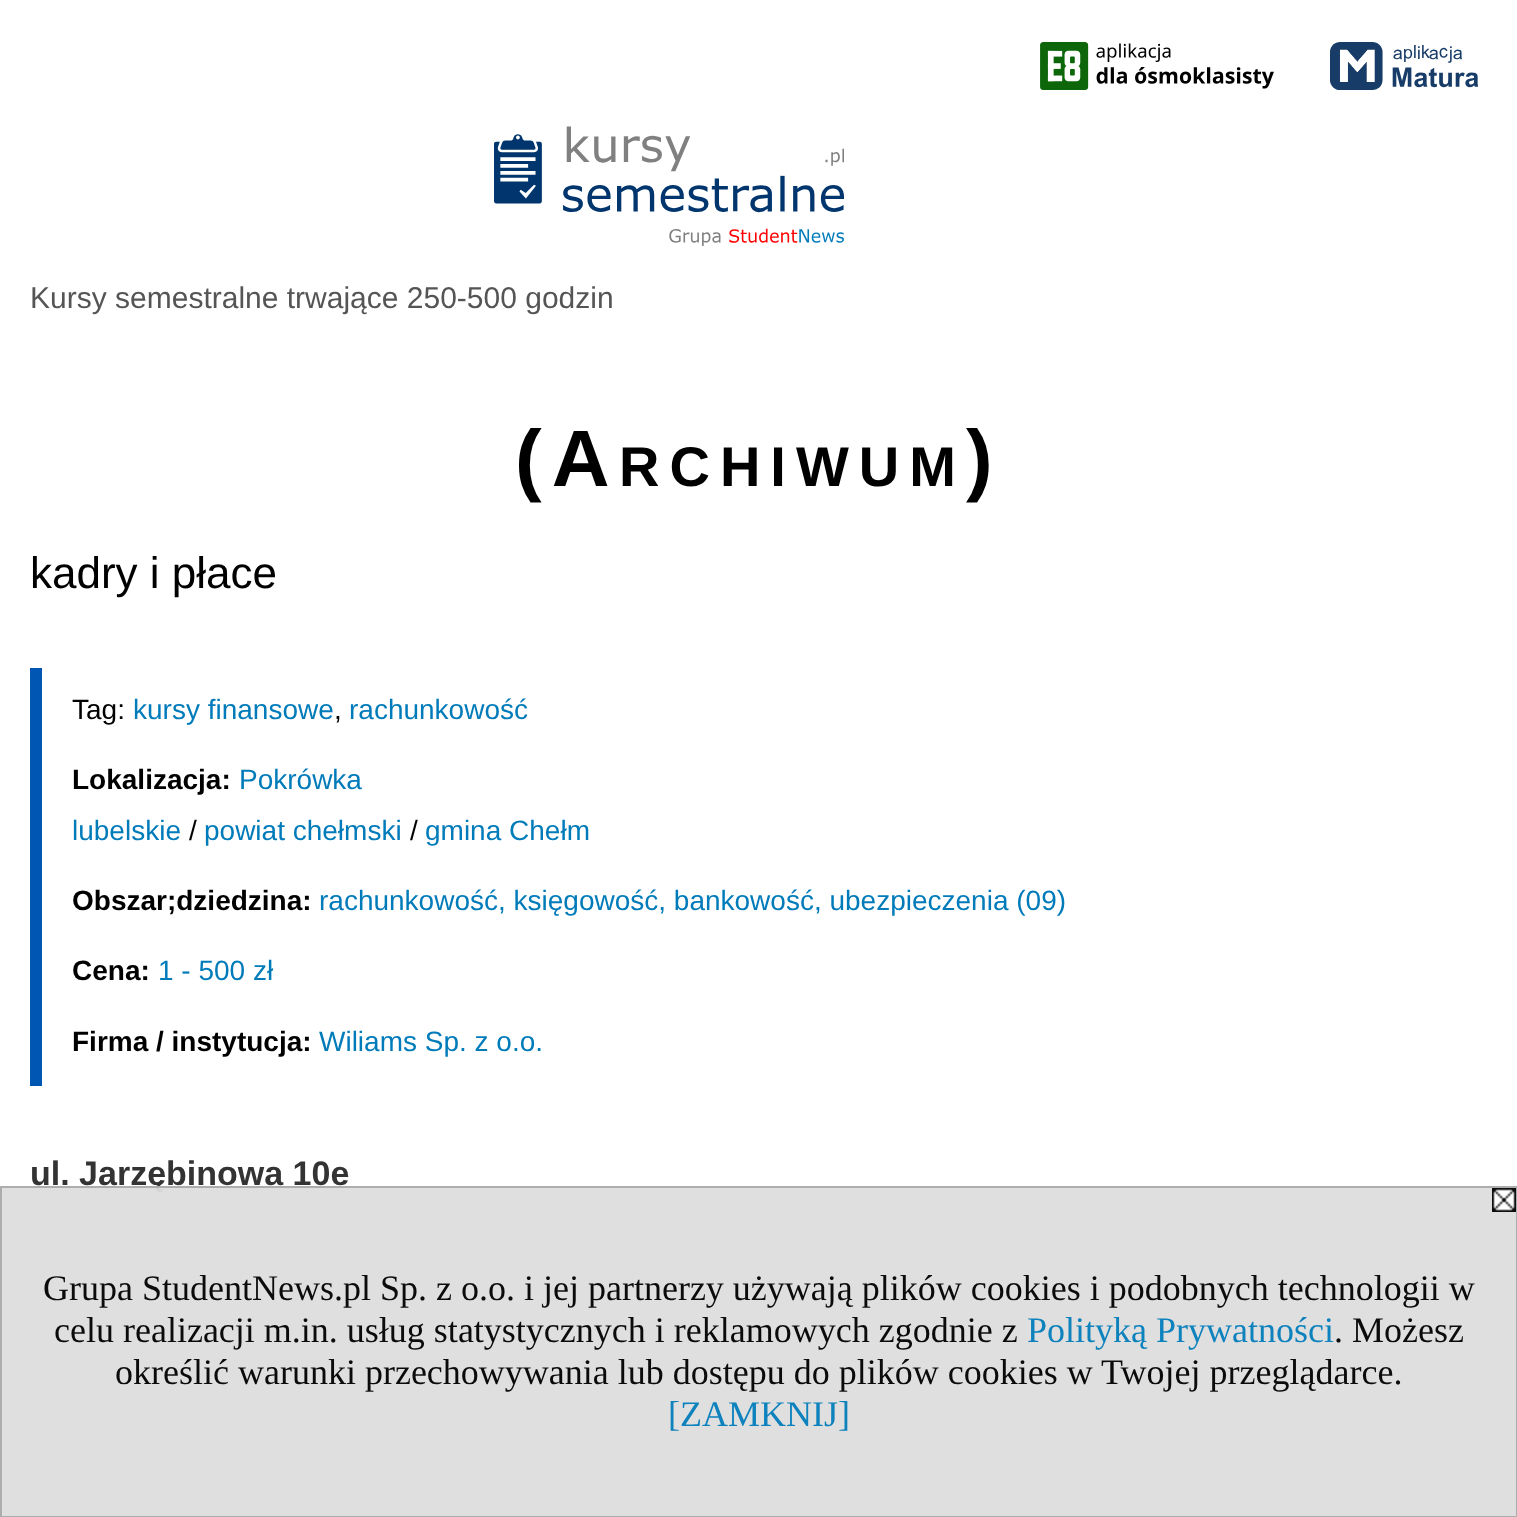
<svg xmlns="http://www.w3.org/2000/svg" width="1517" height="1517">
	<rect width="100%" height="100%" fill="#FFFFFF" />
	<image x="1040" y="42" width="234" height="48" href="assets/img1.png" />
	<image x="1330" y="42" width="148" height="48" href="assets/img2.png" />
	<image x="494" y="126" width="350" height="120" href="assets/img3.png" />
	<text x="30" y="308" font-family="Liberation Sans" font-size="30" fill="#555555">Kursy semestralne trwające 250-500 godzin</text>
	<text x="515" y="486" font-family="Liberation Sans" font-size="80" font-weight="700" letter-spacing="10" fill="#000000">(A</text>
	<text x="619" y="486" font-family="Liberation Sans" font-size="56" font-weight="700" letter-spacing="10" fill="#000000">RCHIWUM</text>
	<text x="966" y="486" font-family="Liberation Sans" font-size="80" font-weight="700" letter-spacing="10" fill="#000000">)</text>
	<text x="30" y="588" font-family="Liberation Sans" font-size="44" fill="#000000">kadry i płace</text>
	<rect x="30" y="668" width="12" height="418" fill="#0056B3" />
	<text x="72" y="719" font-family="Liberation Sans" font-size="28" fill="#000000">Tag:</text>
	<text x="133" y="719" font-family="Liberation Sans" font-size="28" fill="#007BBA">kursy finansowe</text>
	<text x="334" y="719" font-family="Liberation Sans" font-size="28" fill="#000000">,</text>
	<text x="349" y="719" font-family="Liberation Sans" font-size="28" fill="#007BBA">rachunkowość</text>
	<text x="72" y="789" font-family="Liberation Sans" font-size="28" font-weight="700" fill="#000000">Lokalizacja:</text>
	<g font-family="Liberation Sans" font-size="28" fill="#007BBA">
		<text x="239" y="789">Pokrówka</text>
		<text x="72" y="840">lubelskie</text>
	</g>
	<text x="189" y="840" font-family="Liberation Sans" font-size="28" fill="#000000">/</text>
	<text x="204" y="840" font-family="Liberation Sans" font-size="28" fill="#007BBA">powiat chełmski</text>
	<text x="410" y="840" font-family="Liberation Sans" font-size="28" fill="#000000">/</text>
	<text x="425" y="840" font-family="Liberation Sans" font-size="28" fill="#007BBA">gmina Chełm</text>
	<text x="72" y="910" font-family="Liberation Sans" font-size="28" font-weight="700" fill="#000000">Obszar;dziedzina:</text>
	<text x="319" y="910" font-family="Liberation Sans" font-size="28" fill="#007BBA">rachunkowość, księgowość, bankowość, ubezpieczenia (09)</text>
	<text x="72" y="980" font-family="Liberation Sans" font-size="28" font-weight="700" fill="#000000">Cena:</text>
	<text x="158" y="980" font-family="Liberation Sans" font-size="28" fill="#007BBA">1 - 500 zł</text>
	<text x="72" y="1051" font-family="Liberation Sans" font-size="28" font-weight="700" fill="#000000">Firma / instytucja:</text>
	<text x="319" y="1051" font-family="Liberation Sans" font-size="28" fill="#007BBA">Wiliams Sp. z o.o.</text>
	<text x="30" y="1185" font-family="Liberation Sans" font-size="34" font-weight="700" fill="#333333">ul. Jarzębinowa 10e</text>
	<rect x="0" y="1186" width="1517" height="331" fill="#DDDDDD" fill-opacity="0.95" />
	<rect x="1" y="1187" width="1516" height="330" fill="none" stroke="#AAAAAA" stroke-opacity="0.95" stroke-width="2" />
	<image x="1492" y="1188" width="24" height="24" href="assets/img4.png" />
	<g font-family="Liberation Serif" font-size="36" fill="#0B0B0B">
		<text x="43" y="1300">Grupa StudentNews.pl Sp. z o.o. i jej partnerzy używają plików cookies i podobnych technologii w</text>
		<text x="54" y="1342">celu realizacji m.in. usług statystycznych i reklamowych zgodnie z</text>
	</g>
	<text x="1027" y="1342" font-family="Liberation Serif" font-size="36" fill="#0D82BD">Polityką Prywatności</text>
	<g font-family="Liberation Serif" font-size="36" fill="#0B0B0B">
		<text x="1334" y="1342">. Możesz</text>
		<text x="115" y="1384">określić warunki przechowywania lub dostępu do plików cookies w Twojej przeglądarce.</text>
	</g>
	<text x="668" y="1426" font-family="Liberation Serif" font-size="36" fill="#0D82BD">[ZAMKNIJ]</text>
</svg>
